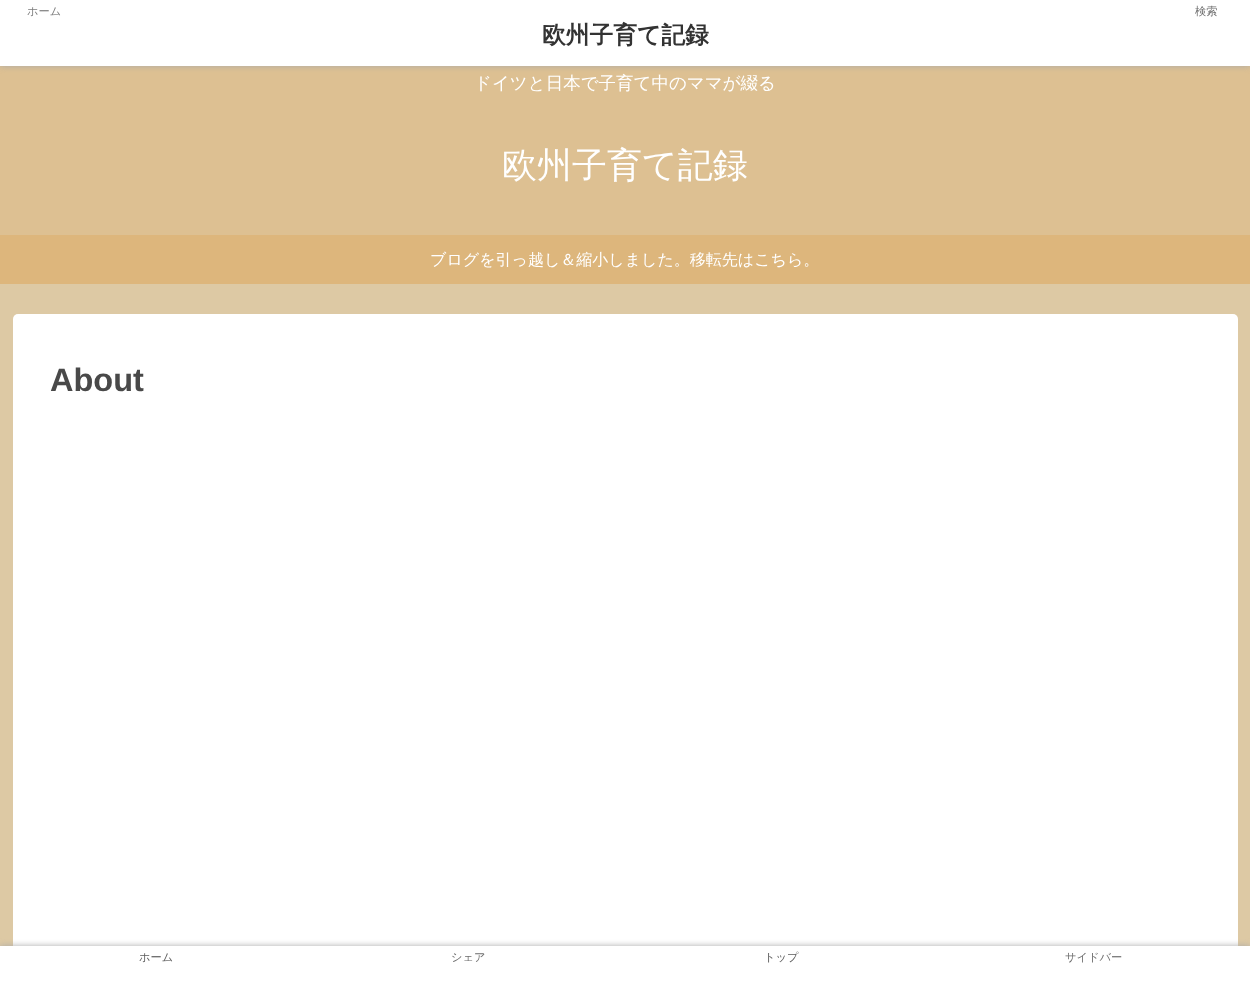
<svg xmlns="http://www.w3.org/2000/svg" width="1250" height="1008">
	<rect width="100%" height="100%" fill="#DDC9A4" />
	<rect x="0" y="66" width="1250" height="169" fill="#DDC092" />
	<rect x="0" y="0" width="1250" height="66" fill="#A9A9A9" filter="blur(3px)" />
	<rect x="0" y="0" width="1250" height="66" fill="#FFFFFF" />
	<text x="27" y="15" font-family="WenQuanYi Zen Hei" font-size="11.25" font-weight="500" fill="#7C7C7C">ホーム</text>
	<text x="1195" y="15" font-family="WenQuanYi Zen Hei" font-size="11.25" font-weight="500" fill="#6D6D6D">検索</text>
	<text x="542" y="43" font-family="WenQuanYi Zen Hei" font-size="23.75" font-weight="700" fill="#333333">欧州子育て記録</text>
	<text x="474" y="89" font-family="WenQuanYi Zen Hei" font-size="17.5" font-weight="500" fill="#FFFFFF">ドイツと日本で子育て中のママが綴る</text>
	<text x="502" y="177" font-family="WenQuanYi Zen Hei" font-size="35" font-weight="500" fill="#FFFFFF">欧州子育て記録</text>
	<rect x="0" y="235" width="1250" height="49" fill="#DDB67C" />
	<text x="430" y="265" font-family="WenQuanYi Zen Hei" font-size="16" font-weight="500" fill="#FFFFFF">ブログを引っ越し＆縮小しました。移転先はこちら。</text>
	<rect x="13" y="314" width="1225" height="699" rx="5" fill="#FFFFFF" />
	<text x="50" y="391" font-family="Liberation Sans" font-size="32.5" font-weight="700" fill="#494949">About</text>
	<rect x="0" y="946" width="1250" height="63" fill="#A9A9A9" filter="blur(3px)" />
	<rect x="0" y="946" width="1250" height="62" fill="#FFFFFF" />
	<text x="139" y="961" font-family="WenQuanYi Zen Hei" font-size="11.25" font-weight="500" fill="#5C5C5C">ホーム</text>
	<text x="451" y="961" font-family="WenQuanYi Zen Hei" font-size="11.25" font-weight="500" fill="#6D6D6D">シェア</text>
	<text x="764" y="961" font-family="WenQuanYi Zen Hei" font-size="11.25" font-weight="500" fill="#5C5C5C">トップ</text>
	<text x="1065" y="961" font-family="WenQuanYi Zen Hei" font-size="11.25" font-weight="500" fill="#6D6D6D">サイドバー</text>
</svg>
